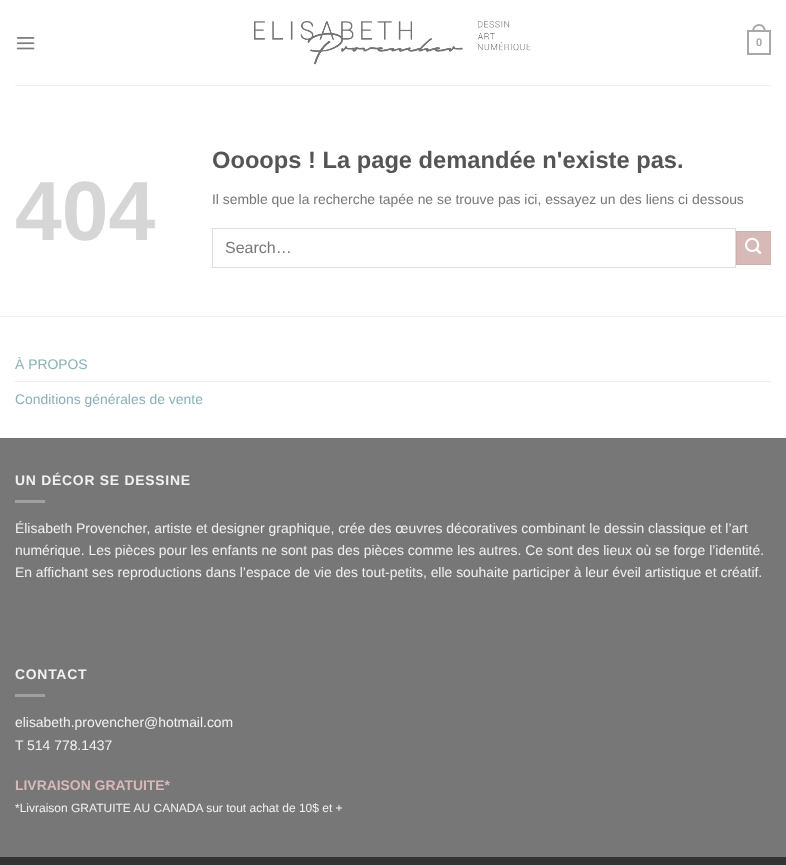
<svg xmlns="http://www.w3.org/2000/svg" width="786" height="865">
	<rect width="100%" height="100%" fill="#FFFFFF" />
	<image x="16" y="37" width="19" height="13" href="assets/img1.png" />
	<image x="254" y="21" width="277" height="44" href="assets/img2.png" />
	<rect x="748" y="31" width="22" height="23" fill="none" stroke="#A8A8A8" stroke-width="2" />
	<path d="M759 24C763.5 24 766 28 766 32H752C752 28 754.5 24 759 24ZM759 26C762.5 26 764 29 764 32H754C754 29 755.5 26 759 26Z" fill="#A8A8A8" fill-rule="evenodd" />
	<text x="756" y="46" font-family="Liberation Sans" font-size="11" font-weight="700" fill="#A8A8A8">0</text>
	<rect x="15" y="85" width="756" height="1" fill="#F1F1F1" />
	<text x="15" y="240" font-family="Liberation Sans" font-size="84" font-weight="700" fill="#D6D6D6">404</text>
	<text x="212" y="168" font-family="Liberation Sans" font-size="23.7" font-weight="700" fill="#555555">Oooops ! La page demandée n'existe pas.</text>
	<text x="212" y="204" font-family="Liberation Sans" font-size="13.92" fill="#777777">Il semble que la recherche tapée ne se trouve pas ici, essayez un des liens ci dessous</text>
	<rect x="212.5" y="228.5" width="523" height="39" fill="none" stroke="#DDDDDD" />
	<text x="225" y="253" font-family="Liberation Sans" font-size="16" fill="#777777">Search…</text>
	<rect x="736.5" y="231.5" width="34" height="33" fill="#D7BAB8" stroke="#CCB1AF" />
	<image x="745" y="237" width="17" height="17" href="assets/img3.png" />
	<rect x="0" y="316" width="786" height="1" fill="#F2F2F2" />
	<text x="15" y="369" font-family="Liberation Sans" font-size="13.92" fill="#89B1B6">À PROPOS</text>
	<rect x="15" y="381" width="756" height="1" fill="#ECECEC" />
	<text x="15" y="404" font-family="Liberation Sans" font-size="13.92" fill="#89B1B6">Conditions générales de vente</text>
	<rect x="0" y="439" width="786" height="418" fill="#777777" />
	<rect x="0" y="438" width="786" height="1" fill="#717171" />
	<text x="15" y="485" font-family="Liberation Sans" font-size="13.92" font-weight="700" letter-spacing="0.75" fill="#F1F1F1">UN DÉCOR SE DESSINE</text>
	<rect x="15" y="500" width="30" height="3" fill="#A0A0A0" />
	<g font-family="Liberation Sans" font-size="13.92" fill="#F1F1F1">
		<text x="15" y="533">Élisabeth Provencher, artiste et designer graphique, crée des œuvres décoratives combinant le dessin classique et l’art</text>
		<text x="15" y="555">numérique. Les pièces pour les enfants ne sont pas des pièces comme les autres. Ce sont des lieux où se forge l’identité.</text>
		<text x="15" y="577">En affichant ses reproductions dans l’espace de vie des tout-petits, elle souhaite participer à leur éveil artistique et créatif.</text>
	</g>
	<text x="15" y="679" font-family="Liberation Sans" font-size="13.92" font-weight="700" letter-spacing="0.75" fill="#F1F1F1">CONTACT</text>
	<rect x="15" y="694" width="30" height="3" fill="#A0A0A0" />
	<g font-family="Liberation Sans" font-size="13.92" fill="#F1F1F1">
		<text x="15" y="727">elisabeth.provencher@hotmail.com</text>
		<text x="15" y="750">T 514 778.1437</text>
	</g>
	<text x="15" y="790" font-family="Liberation Sans" font-size="13.92" font-weight="700" fill="#D7BAB8">LIVRAISON GRATUITE*</text>
	<text x="15" y="812" font-family="Liberation Sans" font-size="12" fill="#F1F1F1">*Livraison GRATUITE AU CANADA sur tout achat de 10$ et +</text>
	<rect x="0" y="857" width="786" height="8" fill="#333333" />
</svg>
